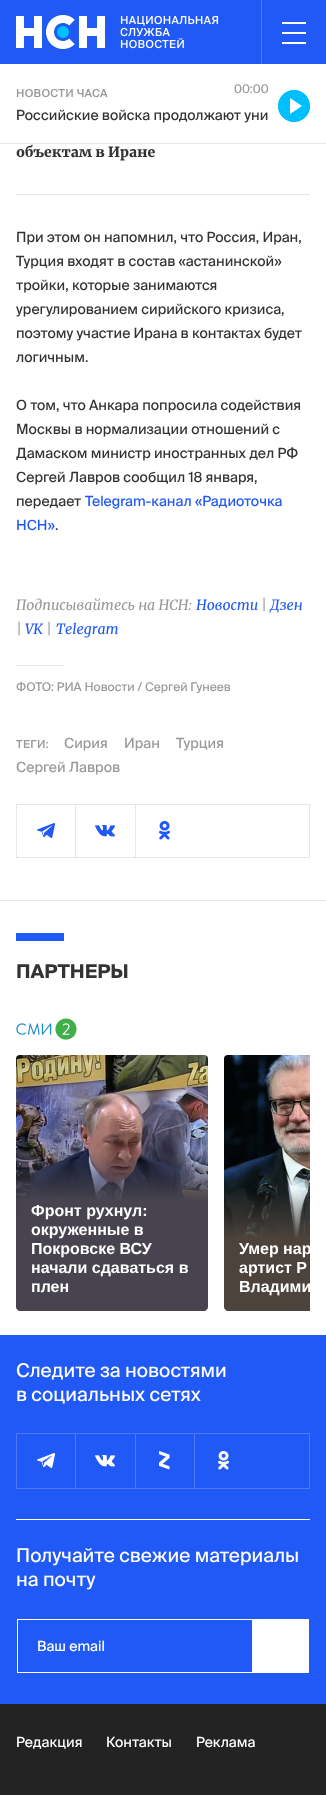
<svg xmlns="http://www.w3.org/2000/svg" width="326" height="1795">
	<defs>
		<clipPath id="clip1"><rect x="278" y="90" width="32" height="32" rx="16" /></clipPath>
		<clipPath id="clip2"><rect x="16" y="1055" width="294" height="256" /></clipPath>
		<clipPath id="clip3"><rect x="16" y="1055" width="294" height="256" /></clipPath>
	</defs>
	<rect width="100%" height="100%" fill="#FFFFFF" />
	<rect x="0" y="0" width="326" height="64" fill="#2059F6" />
	<rect x="261" y="0" width="1" height="64" fill="#4D7AF8" />
	<image x="16" y="15" width="203" height="34" href="assets/img1.png" />
	<rect x="282" y="22" width="24" height="2" fill="#FFFFFF" />
	<rect x="282" y="32" width="24" height="2" fill="#FFFFFF" />
	<rect x="282" y="42" width="24" height="2" fill="#FFFFFF" />
	<rect x="0" y="143" width="326" height="1" fill="#E6E6E6" />
	<text x="16" y="97" font-family="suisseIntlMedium" font-size="11" font-weight="500" letter-spacing="0.25" fill="#999999">НОВОСТИ ЧАСА</text>
	<text x="234" y="93" font-family="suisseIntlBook" font-size="12" fill="#999999">00:00</text>
	<text x="16" y="120" font-family="suisseIntlBook" font-size="14" fill="#333333">Российские войска продолжают уни</text>
	<circle cx="294" cy="106" r="16" fill="#00BFFF" />
	<path d="M302 106L290 114V98Z" fill="#FFFFFF" />
	<g clip-path="url(#clip1)">
		<path d="M279 106C279 91.5 298 85.5 306.5 97.5C308 100 309 103 309 106C309 125.5 279.5 126 279 106" fill="none" stroke="#00BFFF" stroke-width="2" />
	</g>
	<rect x="16" y="194" width="294" height="1" fill="#E6E6E6" />
	<text x="16" y="157" font-family="Merriweather" font-size="14" font-weight="900" fill="#333333">объектам в Иране</text>
	<g font-family="suisseIntlBook" font-size="14" fill="#333333">
		<text x="16" y="242">При этом он напомнил, что Россия, Иран,</text>
		<text x="16" y="266">Турция входят в состав «астанинской»</text>
		<text x="16" y="290">тройки, которые занимаются</text>
		<text x="16" y="314">урегулированием сирийского кризиса,</text>
		<text x="16" y="338">поэтому участие Ирана в контактах будет</text>
		<text x="16" y="362">логичным.</text>
		<text x="16" y="410">О том, что Анкара попросила содействия</text>
		<text x="16" y="434">Москвы в нормализации отношений с</text>
		<text x="16" y="458">Дамаском министр иностранных дел РФ</text>
		<text x="16" y="482">Сергей Лавров сообщил 18 января,</text>
		<text x="16" y="506">передает</text>
	</g>
	<g font-family="suisseIntlBook" font-size="14" fill="#2059F6">
		<text x="85" y="506">Telegram-канал «Радиоточка</text>
		<text x="16" y="530">НСН»</text>
	</g>
	<text x="55" y="530" font-family="suisseIntlBook" font-size="14" fill="#333333">.</text>
	<text x="16" y="610" font-family="Merriweather" font-size="14" font-style="italic" fill="#999999">Подписывайтесь на НСН:</text>
	<text x="196" y="610" font-family="Merriweather" font-size="14" font-style="italic" fill="#2059F6">Новости</text>
	<text x="261" y="610" font-family="Merriweather" font-size="14" font-style="italic" fill="#999999">|</text>
	<text x="270" y="610" font-family="Merriweather" font-size="14" font-style="italic" fill="#2059F6">Дзен</text>
	<text x="16" y="634" font-family="Merriweather" font-size="14" font-style="italic" fill="#999999">|</text>
	<text x="25" y="634" font-family="Merriweather" font-size="14" font-style="italic" fill="#2059F6">VK</text>
	<text x="46" y="634" font-family="Merriweather" font-size="14" font-style="italic" fill="#999999">|</text>
	<text x="56" y="634" font-family="Merriweather" font-size="14" font-style="italic" fill="#2059F6">Telegram</text>
	<rect x="16" y="665" width="48" height="1" fill="#E6E6E6" />
	<text x="16" y="691" font-family="suisseIntlBook" font-size="12" fill="#999999">ФОТО: РИА Новости / Сергей Гунеев</text>
	<text x="16" y="748" font-family="suisseIntlMedium" font-size="11" font-weight="500" letter-spacing="0.25" fill="#999999">ТЕГИ:</text>
	<g font-family="suisseIntlBook" font-size="14" fill="#999999">
		<text x="64" y="748">Сирия</text>
		<text x="124" y="748">Иран</text>
		<text x="176" y="748">Турция</text>
		<text x="16" y="772">Сергей Лавров</text>
	</g>
	<rect x="16.5" y="804.5" width="293" height="53" fill="none" stroke="#E6E6E6" />
	<rect x="75" y="805" width="1" height="52" fill="#E6E6E6" />
	<image x="37" y="823" width="18" height="15" href="assets/img2.png" />
	<rect x="135" y="805" width="1" height="52" fill="#E6E6E6" />
	<image x="95" y="825" width="20" height="12" href="assets/img3.png" />
	<image x="159" y="821" width="11" height="19" href="assets/img4.png" />
	<rect x="0" y="900" width="326" height="1" fill="#E6E6E6" />
	<rect x="16" y="933" width="48" height="8" fill="#2059F6" />
	<text x="16" y="978" font-family="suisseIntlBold" font-size="19" font-weight="700" fill="#333333">ПАРТНЕРЫ</text>
	<image x="16" y="1018" width="61" height="22" href="assets/img5.png" />
	<image x="16" y="1055" width="192" height="146" href="assets/img6.png" />
	<path d="M16 1201H208V1307C208 1309 206 1311 204 1311H20C18 1311 16 1309 16 1307Z" fill="#48444F" />
	<g clip-path="url(#clip2)">
		<rect x="-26" y="1146" width="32" height="68" rx="3" fill="#000000" filter="blur(7.5px)" />
	</g>
	<g font-family="Liberation Sans" font-size="16" font-weight="700" fill="#FFFFFF">
		<text x="31" y="1216">Фронт рухнул:</text>
		<text x="31" y="1235">окруженные в</text>
		<text x="31" y="1254">Покровске ВСУ</text>
		<text x="31" y="1273">начали сдаваться в</text>
		<text x="31" y="1292">плен</text>
	</g>
	<image x="224" y="1055" width="86" height="184" href="assets/img7.png" />
	<path d="M224 1239H310V1311H228C226 1311 224 1309 224 1307Z" fill="#4C433D" />
	<g clip-path="url(#clip3)">
		<text x="239" y="1254" font-family="Liberation Sans" font-size="16" font-weight="700" fill="#FFFFFF">Умер нар</text>
	</g>
	<text x="239" y="1273" font-family="Liberation Sans" font-size="16" font-weight="700" fill="#FFFFFF">артист Р</text>
	<g clip-path="url(#clip3)">
		<text x="239" y="1292" font-family="Liberation Sans" font-size="16" font-weight="700" fill="#FFFFFF">Владими</text>
	</g>
	<rect x="0" y="1335" width="326" height="369" fill="#2059F6" />
	<g font-family="suisseIntlBook" font-size="19" fill="#FFFFFF">
		<text x="16" y="1377">Следите за новостями</text>
		<text x="16" y="1401">в социальных сетях</text>
	</g>
	<rect x="16.5" y="1433.5" width="293" height="55" fill="none" stroke="#4D7AF8" />
	<rect x="75" y="1434" width="1" height="54" fill="#4D7AF8" />
	<image x="37" y="1453" width="18" height="15" href="assets/img8.png" />
	<rect x="135" y="1434" width="1" height="54" fill="#4D7AF8" />
	<image x="95" y="1455" width="20" height="12" href="assets/img9.png" />
	<rect x="194" y="1434" width="1" height="54" fill="#4D7AF8" />
	<image x="159" y="1451" width="11" height="19" href="assets/img10.png" />
	<image x="218" y="1451" width="11" height="19" href="assets/img11.png" />
	<rect x="16" y="1519" width="294" height="1" fill="#FFFFFF" />
	<g font-family="suisseIntlBook" font-size="19" fill="#FFFFFF">
		<text x="16" y="1562">Получайте свежие материалы</text>
		<text x="16" y="1586">на почту</text>
	</g>
	<rect x="17.5" y="1619.5" width="235" height="53" fill="none" stroke="#FFFFFF" />
	<text x="37" y="1651" font-family="suisseIntlBook" font-size="14" fill="#FFFFFF">Ваш email</text>
	<rect x="253" y="1619" width="56" height="54" fill="#FFFFFF" />
	<rect x="0" y="1704" width="326" height="91" fill="#232323" />
	<g font-family="suisseIntlBook" font-size="14" fill="#FFFFFF">
		<text x="16" y="1747">Редакция</text>
		<text x="106" y="1747">Контакты</text>
		<text x="196" y="1747">Реклама</text>
	</g>
</svg>
